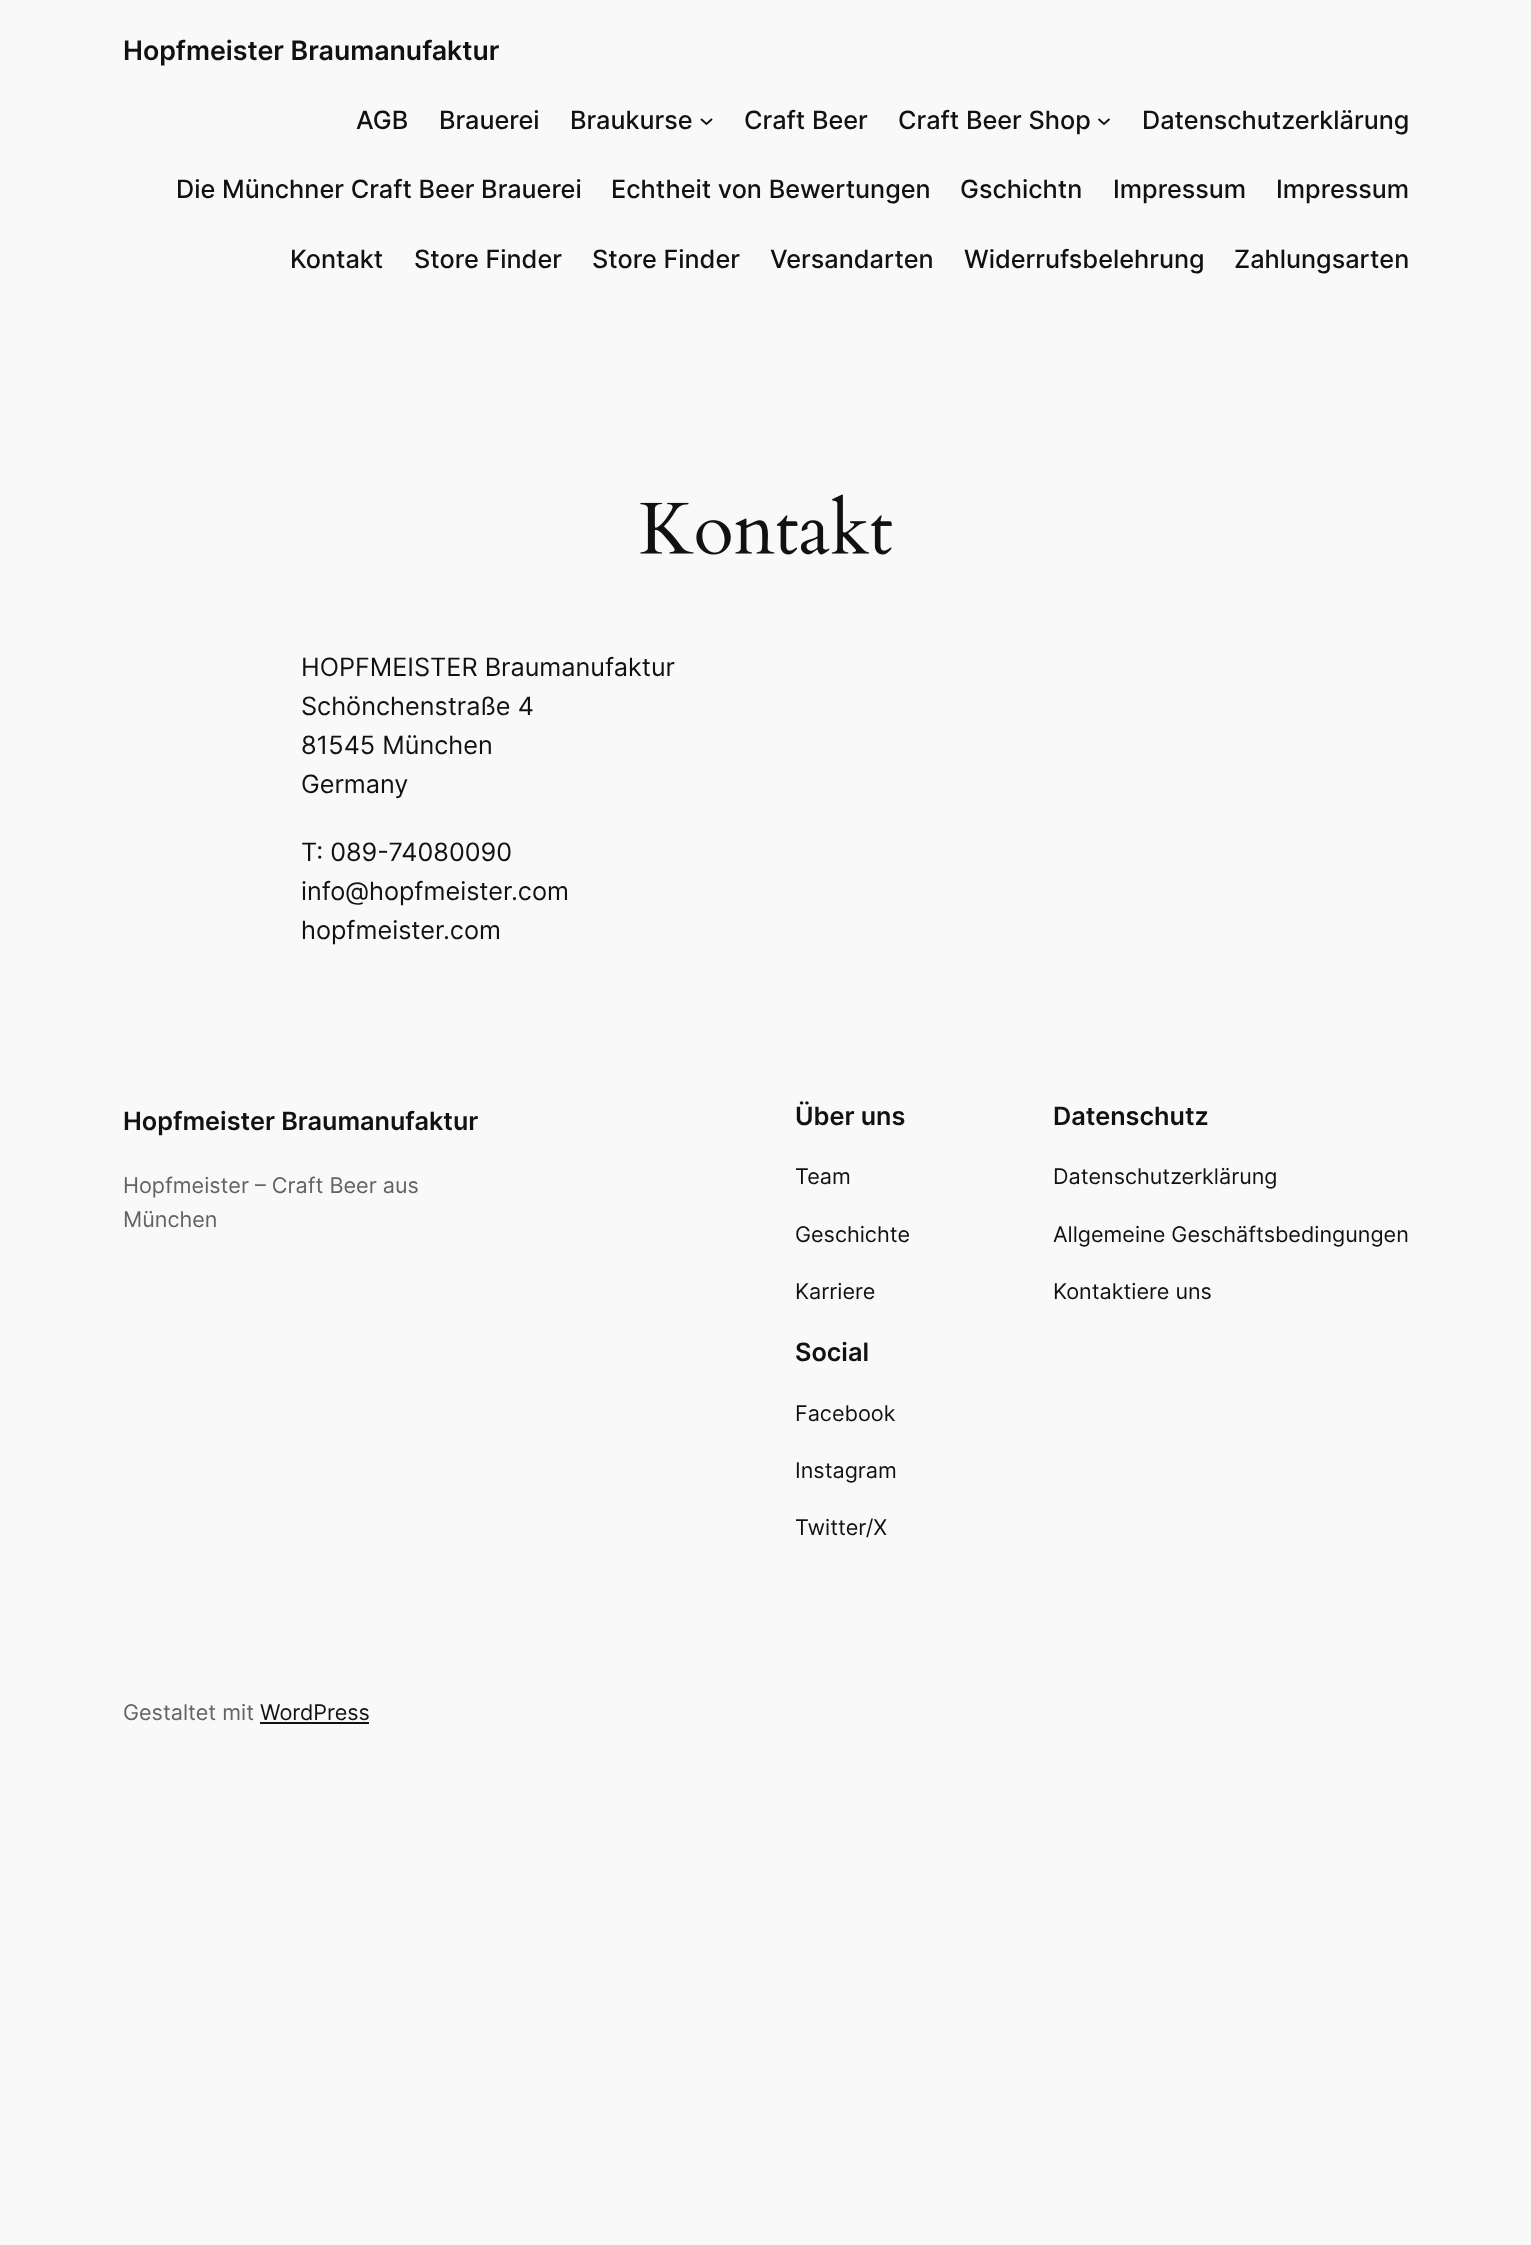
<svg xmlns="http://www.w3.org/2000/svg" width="1531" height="2245">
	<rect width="100%" height="100%" fill="#F9F9F9" />
	<text x="123" y="60" font-family="Inter" font-size="26.75" font-weight="600" fill="#111111">Hopfmeister Braumanufaktur</text>
	<g font-family="Inter" font-size="25.25" font-weight="500" fill="#111111">
		<text x="356" y="129">AGB</text>
		<text x="439" y="129">Brauerei</text>
		<text x="570" y="129">Braukurse</text>
	</g>
	<path d="M701 119L706.5 124L712 119" fill="none" stroke="#111111" stroke-width="1.9" />
	<g font-family="Inter" font-size="25.25" font-weight="500" fill="#111111">
		<text x="744" y="129">Craft Beer</text>
		<text x="898" y="129">Craft Beer Shop</text>
	</g>
	<path d="M1098.5 119L1104 124L1109.5 119" fill="none" stroke="#111111" stroke-width="1.9" />
	<g font-family="Inter" font-size="25.25" font-weight="500" fill="#111111">
		<text x="1142" y="129">Datenschutzerklärung</text>
		<text x="176" y="198">Die Münchner Craft Beer Brauerei</text>
		<text x="611" y="198">Echtheit von Bewertungen</text>
		<text x="960" y="198">Gschichtn</text>
		<text x="1113" y="198">Impressum</text>
		<text x="1276" y="198">Impressum</text>
		<text x="290" y="268">Kontakt</text>
		<text x="414" y="268">Store Finder</text>
		<text x="592" y="268">Store Finder</text>
		<text x="770" y="268">Versandarten</text>
		<text x="964" y="268">Widerrufsbelehrung</text>
		<text x="1234" y="268">Zahlungsarten</text>
	</g>
	<image x="640" y="494" width="252" height="61" href="assets/img1.png" />
	<g font-family="Inter" font-size="25.25" fill="#111111">
		<text x="301" y="676">HOPFMEISTER Braumanufaktur</text>
		<text x="301" y="715">Schönchenstraße 4</text>
		<text x="301" y="754">81545 München</text>
		<text x="301" y="793">Germany</text>
		<text x="301" y="861">T: 089-74080090</text>
		<text x="301" y="900">info@hopfmeister.com</text>
		<text x="301" y="939">hopfmeister.com</text>
	</g>
	<text x="123" y="1130" font-family="Inter" font-size="25.25" font-weight="600" fill="#111111">Hopfmeister Braumanufaktur</text>
	<g font-family="Inter" font-size="21.6" fill="#636363">
		<text x="123" y="1193">Hopfmeister – Craft Beer aus</text>
		<text x="123" y="1227">München</text>
	</g>
	<text x="795" y="1125" font-family="Inter" font-size="25.25" font-weight="600" fill="#111111">Über uns</text>
	<g font-family="Inter" font-size="21.6" fill="#111111">
		<text x="795" y="1184">Team</text>
		<text x="795" y="1242">Geschichte</text>
		<text x="795" y="1299">Karriere</text>
	</g>
	<text x="1053" y="1125" font-family="Inter" font-size="25.25" font-weight="600" fill="#111111">Datenschutz</text>
	<g font-family="Inter" font-size="21.6" fill="#111111">
		<text x="1053" y="1184">Datenschutzerklärung</text>
		<text x="1053" y="1242">Allgemeine Geschäftsbedingungen</text>
		<text x="1053" y="1299">Kontaktiere uns</text>
	</g>
	<text x="795" y="1361" font-family="Inter" font-size="25.25" font-weight="600" fill="#111111">Social</text>
	<g font-family="Inter" font-size="21.6" fill="#111111">
		<text x="795" y="1421">Facebook</text>
		<text x="795" y="1478">Instagram</text>
		<text x="795" y="1535">Twitter/X</text>
	</g>
	<text x="123" y="1720" font-family="Inter" font-size="21.6" fill="#636363">Gestaltet mit</text>
	<text x="260" y="1720" font-family="Inter" font-size="21.6" fill="#111111">WordPress</text>
	<rect x="260" y="1722" width="109" height="2" fill="#111111" />
</svg>
